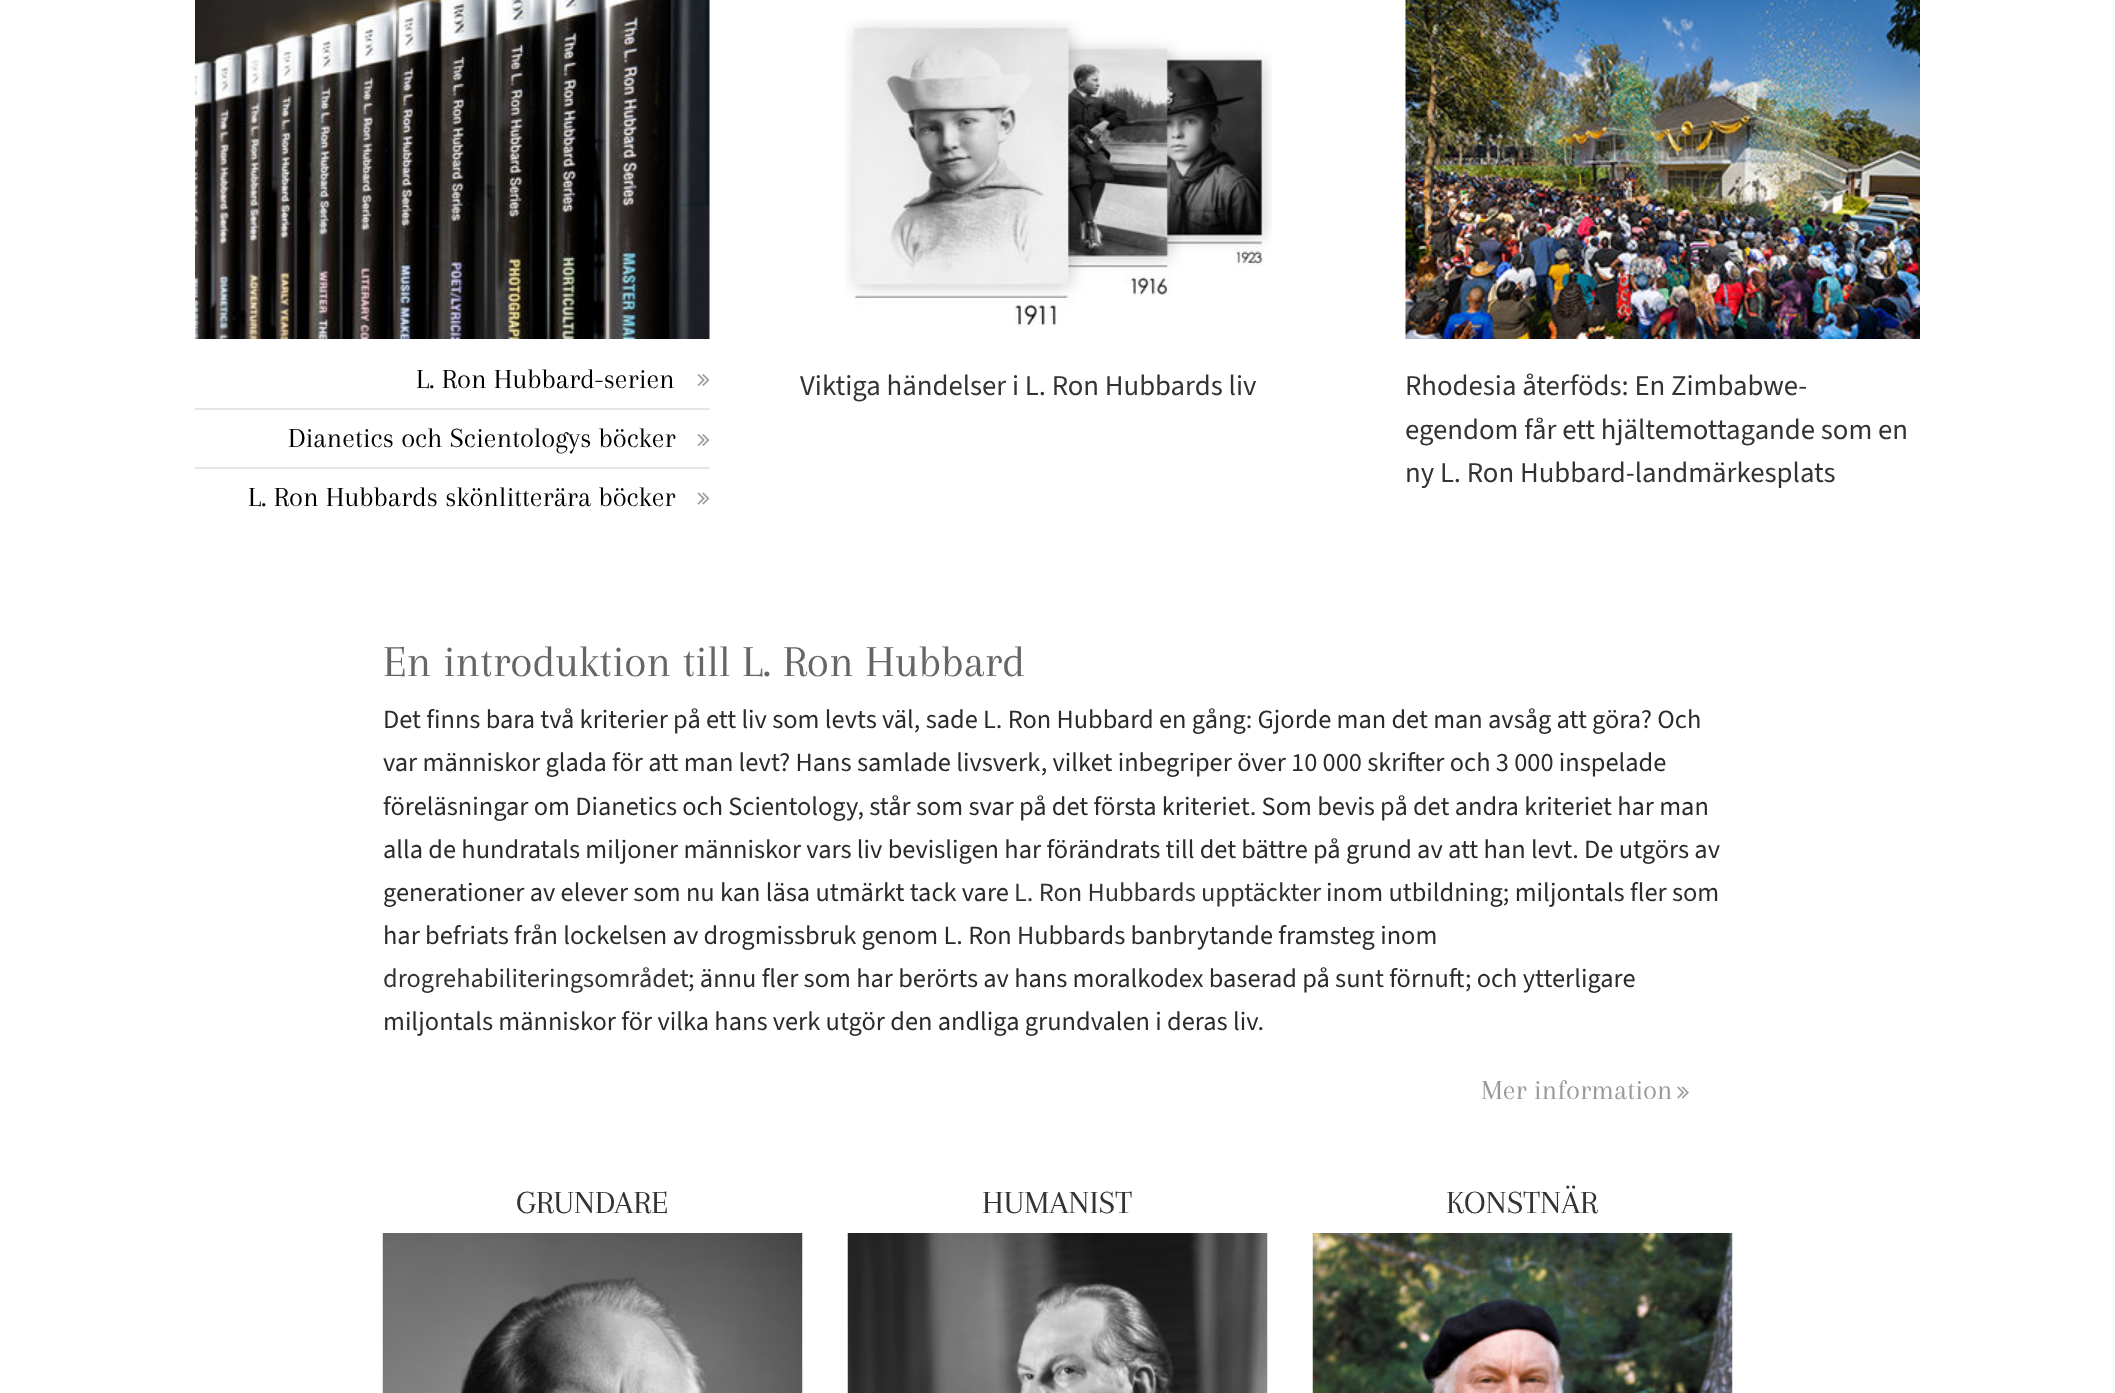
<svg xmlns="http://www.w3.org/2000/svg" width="2115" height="1393">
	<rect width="100%" height="100%" fill="#FFFFFF" />
	<image x="195" y="0" width="515" height="339" href="assets/img1.png" />
	<text x="416" y="388" font-family="Arapey" font-size="28.75" fill="#000000">L. Ron Hubbard-serien</text>
	<image x="697" y="374" width="13" height="12" href="assets/img2.png" />
	<rect x="195" y="408" width="515" height="2" fill="#E6E6E6" />
	<text x="288" y="447" font-family="Arapey" font-size="28.75" fill="#000000">Dianetics och Scientologys böcker</text>
	<image x="697" y="434" width="13" height="12" href="assets/img2.png" />
	<rect x="195" y="467" width="515" height="2" fill="#E6E6E6" />
	<text x="248" y="506" font-family="Arapey" font-size="28.75" fill="#000000">L. Ron Hubbards skönlitterära böcker</text>
	<image x="697" y="492" width="13" height="13" href="assets/img3.png" />
	<image x="845" y="19" width="427" height="307" href="assets/img4.png" />
	<text x="800" y="395" font-family="'Source Sans 3'" font-size="28.75" fill="#333333">Viktiga händelser i L. Ron Hubbards liv</text>
	<image x="1405" y="0" width="515" height="339" href="assets/img5.png" />
	<g font-family="'Source Sans 3'" font-size="28.75" fill="#333333">
		<text x="1405" y="395">Rhodesia återföds: En Zimbabwe-</text>
		<text x="1405" y="439">egendom får ett hjältemottagande som en</text>
		<text x="1405" y="482">ny L. Ron Hubbard-landmärkesplats</text>
	</g>
	<text x="383" y="676" font-family="Arapey" font-size="45.6" fill="#666666">En introduktion till L. Ron Hubbard</text>
	<g font-family="'Source Sans 3'" font-size="26.4" fill="#292B2C">
		<text x="383" y="728">Det finns bara två kriterier på ett liv som levts väl, sade L. Ron Hubbard en gång: Gjorde man det man avsåg att göra? Och</text>
		<text x="383" y="771">var människor glada för att man levt? Hans samlade livsverk, vilket inbegriper över 10 000 skrifter och 3 000 inspelade</text>
		<text x="383" y="815">föreläsningar om Dianetics och Scientology, står som svar på det första kriteriet. Som bevis på det andra kriteriet har man</text>
		<text x="383" y="858">alla de hundratals miljoner människor vars liv bevisligen har förändrats till det bättre på grund av att han levt. De utgörs av</text>
		<text x="383" y="901">generationer av elever som nu kan läsa utmärkt tack vare</text>
	</g>
	<text x="1014" y="901" font-family="'Source Sans 3'" font-size="26.4" fill="#333333">L. Ron Hubbards upptäckter</text>
	<g font-family="'Source Sans 3'" font-size="26.4" fill="#292B2C">
		<text x="1326" y="901">inom utbildning; miljontals fler som</text>
		<text x="383" y="944">har befriats från lockelsen av drogmissbruk genom L. Ron Hubbards banbrytande framsteg inom</text>
	</g>
	<text x="383" y="987" font-family="'Source Sans 3'" font-size="26.4" fill="#333333">drogrehabiliteringsområdet</text>
	<g font-family="'Source Sans 3'" font-size="26.4" fill="#292B2C">
		<text x="688" y="987">; ännu fler som har berörts av hans moralkodex baserad på sunt förnuft; och ytterligare</text>
		<text x="383" y="1030">miljontals människor för vilka hans verk utgör den andliga grundvalen i deras liv.</text>
	</g>
	<text x="1481" y="1099" font-family="Arapey" font-size="28.75" fill="#999999">Mer information</text>
	<image x="1677" y="1086" width="12" height="13" href="assets/img6.png" />
	<text x="516" y="1213" font-family="Arapey" font-size="33.5" fill="#333333">GRUNDARE</text>
	<image x="382" y="1233" width="421" height="160" href="assets/img7.png" />
	<text x="982" y="1213" font-family="Arapey" font-size="33.5" fill="#333333">HUMANIST</text>
	<image x="847" y="1233" width="421" height="160" href="assets/img8.png" />
	<text x="1446" y="1213" font-family="Arapey" font-size="33.5" fill="#333333">KONSTNÄR</text>
	<image x="1312" y="1233" width="421" height="160" href="assets/img9.png" />
</svg>
